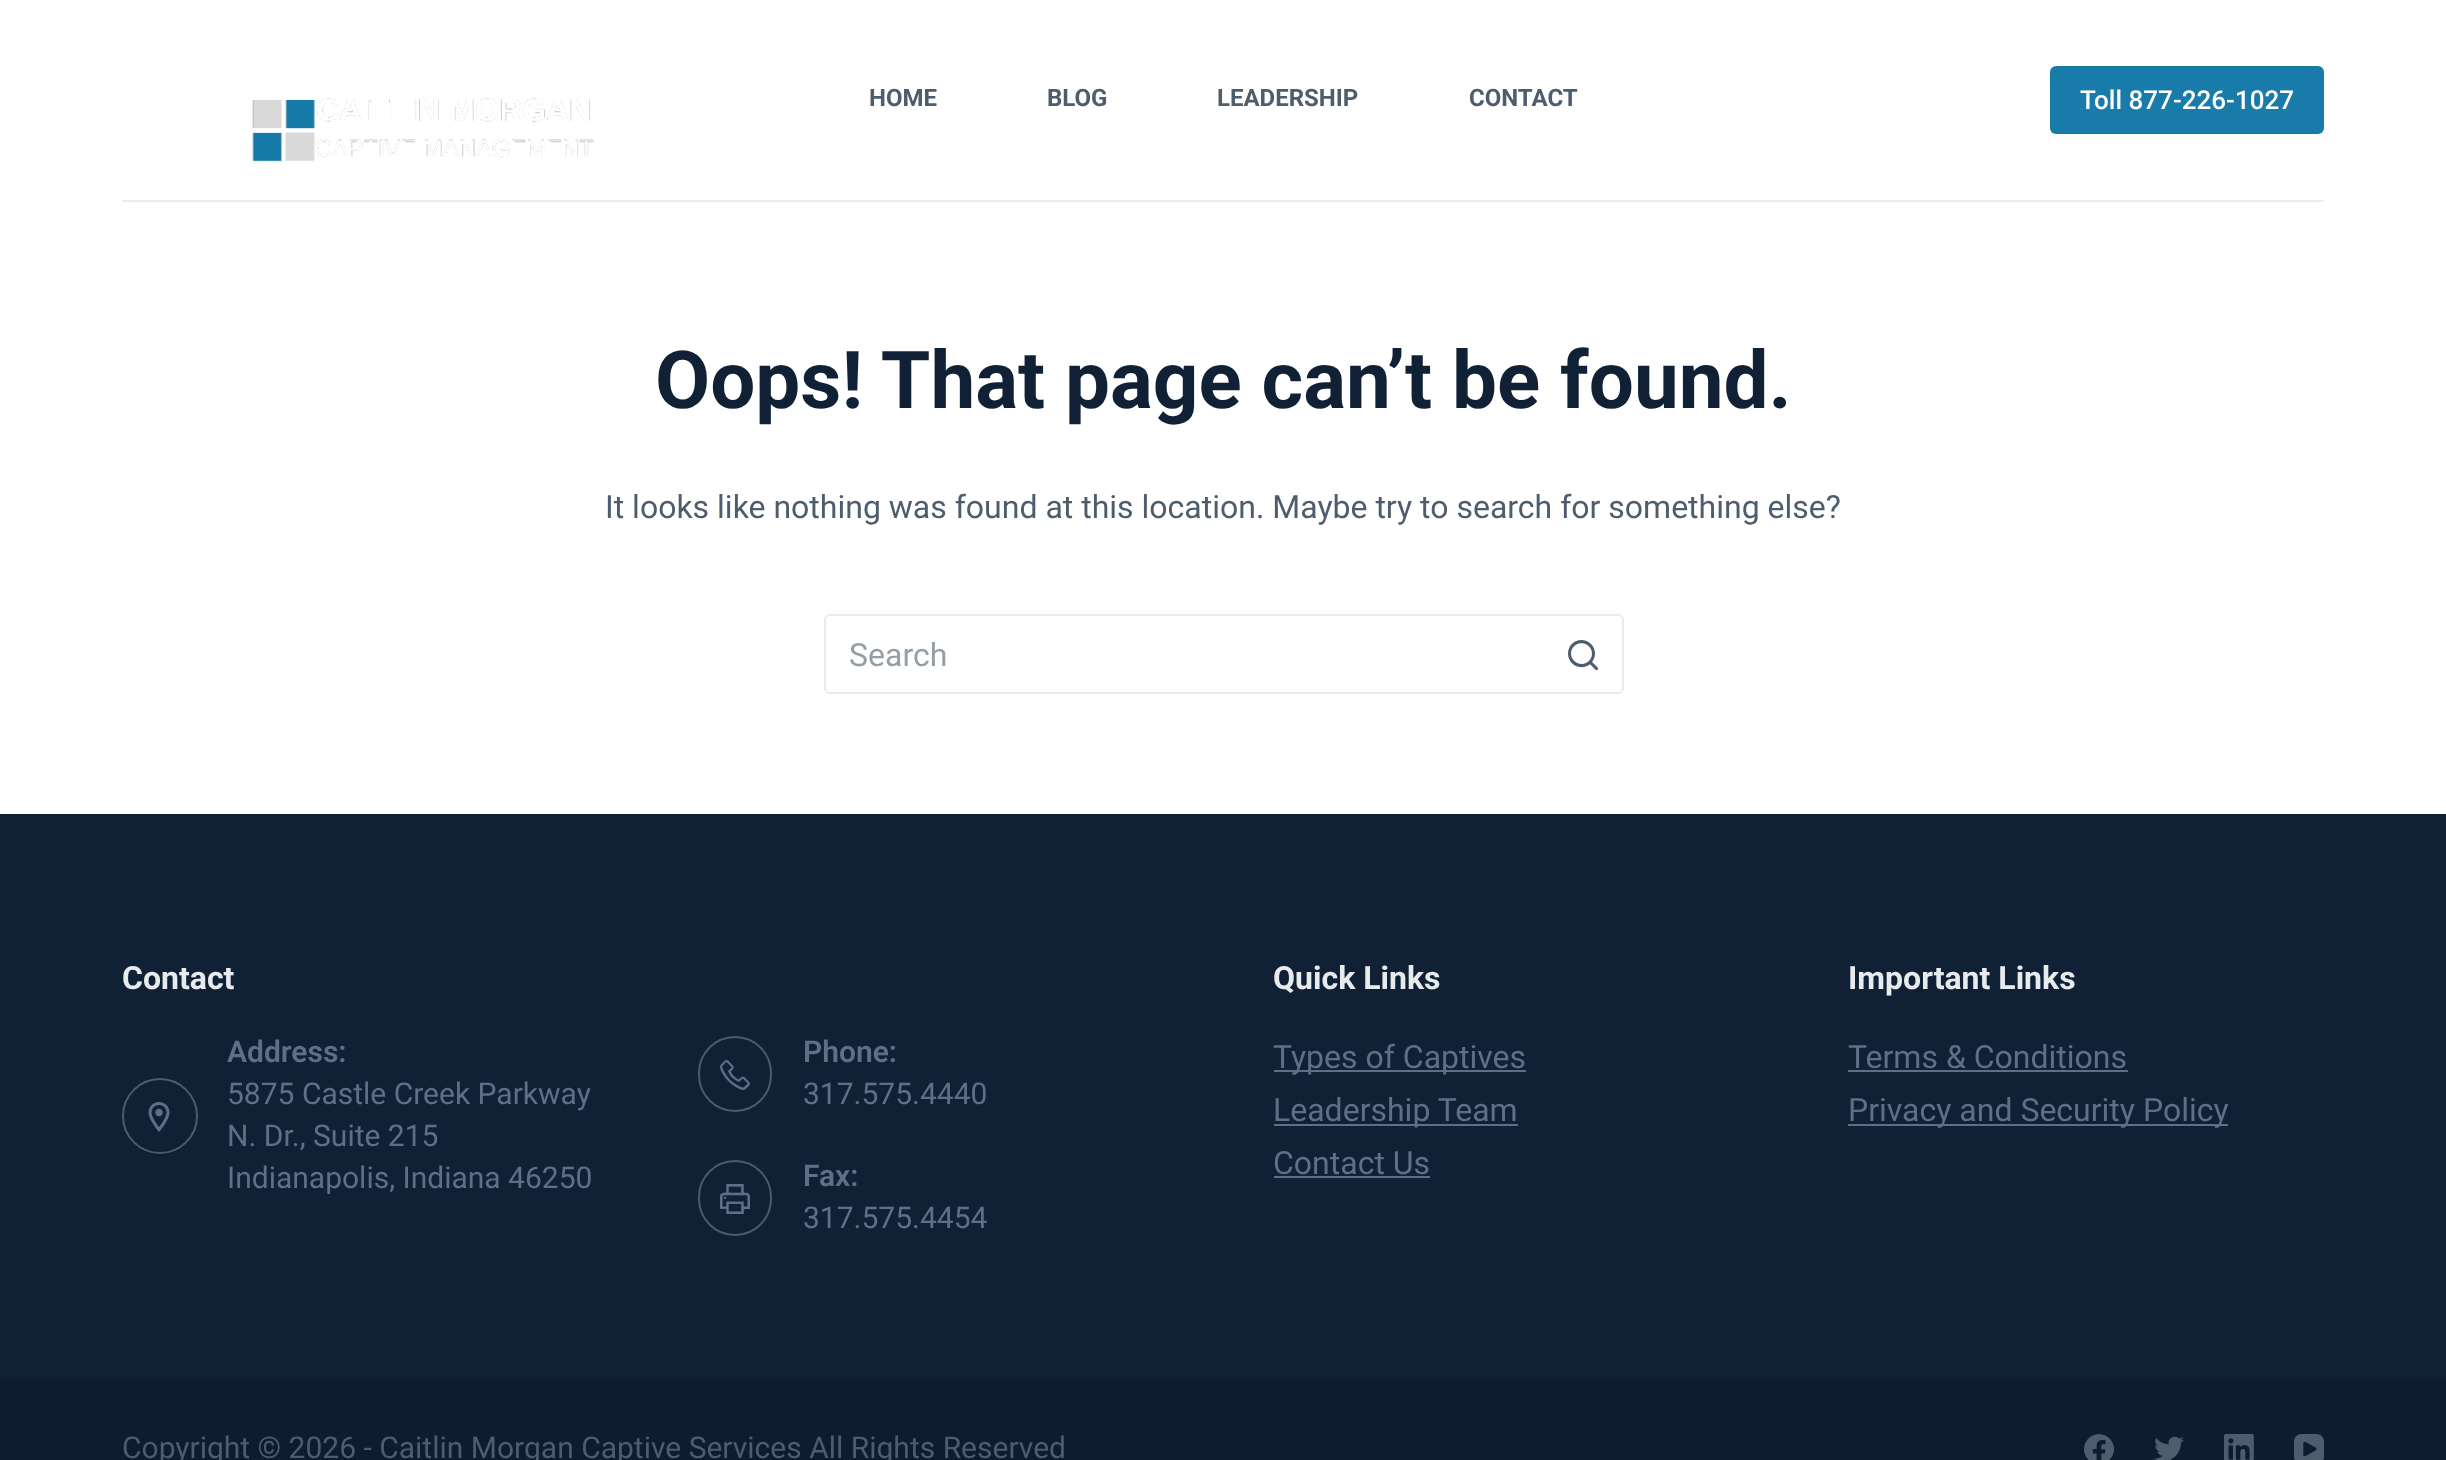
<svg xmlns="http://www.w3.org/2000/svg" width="2446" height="1460">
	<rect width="100%" height="100%" fill="#FFFFFF" />
	<rect x="122" y="200" width="2202" height="2" fill="#EAECED" />
	<image x="252" y="98" width="342" height="64" href="assets/img1.png" />
	<g font-family="Roboto" font-size="24" font-weight="700" fill="#4D5D6D">
		<text x="869" y="106">HOME</text>
		<text x="1047" y="106">BLOG</text>
		<text x="1217" y="106">LEADERSHIP</text>
		<text x="1469" y="106">CONTACT</text>
	</g>
	<rect x="2050" y="66" width="274" height="68" rx="6" fill="#187BA9" />
	<text x="2080" y="109" font-family="Roboto" font-size="26" font-weight="500" fill="#FFFFFF">Toll 877-226-1027</text>
	<text x="655" y="408" font-family="Roboto" font-size="80" font-weight="700" fill="#102136">Oops! That page can’t be found.</text>
	<text x="605" y="518" font-family="Roboto" font-size="32" fill="#4D5D6D">It looks like nothing was found at this location. Maybe try to search for something else?</text>
	<rect x="825" y="615" width="798" height="78" rx="5" fill="none" stroke="#E7EBEE" stroke-width="2" />
	<text x="849" y="666" font-family="Roboto" font-size="32" fill="#949EA7">Search</text>
	<image x="1568" y="640" width="30" height="30" href="assets/img2.png" />
	<rect x="0" y="814" width="2446" height="566" fill="#102136" />
	<text x="122" y="989" font-family="Roboto" font-size="32" font-weight="700" fill="#E7EBEE">Contact</text>
	<circle cx="160" cy="1116" r="37" fill="none" stroke="#4D5A6A" stroke-width="2" />
	<image x="148" y="1102" width="22" height="30" href="assets/img3.png" />
	<text x="227" y="1062" font-family="Roboto" font-size="30" font-weight="600" fill="#5E7086">Address:</text>
	<g font-family="Roboto" font-size="30" fill="#5E7086">
		<text x="227" y="1104">5875 Castle Creek Parkway</text>
		<text x="227" y="1146">N. Dr., Suite 215</text>
		<text x="227" y="1188">Indianapolis, Indiana 46250</text>
	</g>
	<rect x="699" y="1037" width="72" height="74" rx="36" fill="none" stroke="#4D5A6A" stroke-width="2" />
	<image x="720" y="1060" width="30" height="30" href="assets/img4.png" />
	<text x="803" y="1062" font-family="Roboto" font-size="30" font-weight="600" fill="#5E7086">Phone:</text>
	<text x="803" y="1104" font-family="Roboto" font-size="30" fill="#5E7086">317.575.4440</text>
	<rect x="699" y="1161" width="72" height="74" rx="36" fill="none" stroke="#4D5A6A" stroke-width="2" />
	<image x="720" y="1184" width="30" height="30" href="assets/img5.png" />
	<text x="803" y="1186" font-family="Roboto" font-size="30" font-weight="600" fill="#5E7086">Fax:</text>
	<text x="803" y="1228" font-family="Roboto" font-size="30" fill="#5E7086">317.575.4454</text>
	<text x="1273" y="989" font-family="Roboto" font-size="32" font-weight="700" fill="#E7EBEE">Quick Links</text>
	<rect x="1274" y="1070" width="252" height="2" fill="#5E7086" />
	<text x="1273" y="1068" font-family="Roboto" font-size="32" fill="#5E7086">Types of Captives</text>
	<rect x="1274" y="1124" width="244" height="2" fill="#5E7086" />
	<g font-family="Roboto" font-size="32" fill="#5E7086">
		<text x="1273" y="1121">Leadership Team</text>
		<text x="1273" y="1174">Contact Us</text>
	</g>
	<rect x="1274" y="1176" width="156" height="2" fill="#5E7086" />
	<text x="1848" y="989" font-family="Roboto" font-size="32" font-weight="700" fill="#E7EBEE">Important Links</text>
	<text x="1848" y="1068" font-family="Roboto" font-size="32" fill="#5E7086">Terms &amp; Conditions</text>
	<rect x="1848" y="1070" width="280" height="2" fill="#5E7086" />
	<rect x="1848" y="1124" width="380" height="2" fill="#5E7086" />
	<text x="1848" y="1121" font-family="Roboto" font-size="32" fill="#5E7086">Privacy and Security Policy</text>
	<rect x="0" y="1380" width="2446" height="80" fill="#0D1C2F" />
	<text x="122" y="1458" font-family="Roboto" font-size="30" fill="#4D5D6D">Copyright © 2026 - Caitlin Morgan Captive Services All Rights Reserved</text>
	<image x="2084" y="1434" width="30" height="26" href="assets/img6.png" />
	<image x="2154" y="1436" width="30" height="24" href="assets/img7.png" />
	<image x="2224" y="1434" width="30" height="26" href="assets/img8.png" />
	<image x="2294" y="1434" width="30" height="26" href="assets/img9.png" />
</svg>
